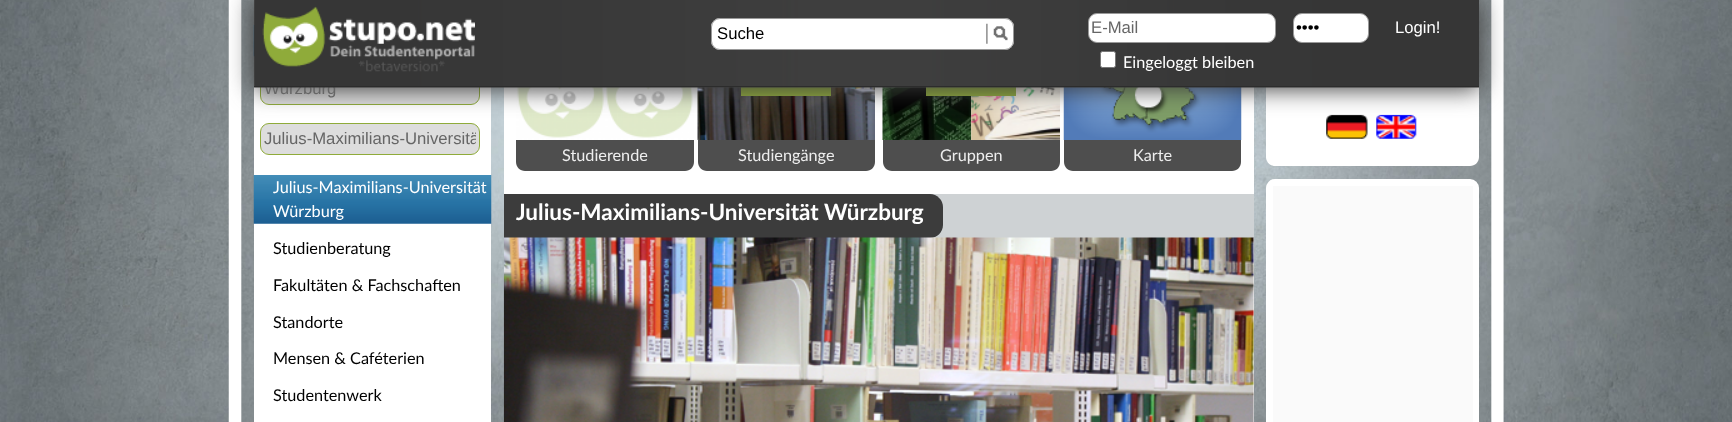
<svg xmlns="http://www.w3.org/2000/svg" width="1732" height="422">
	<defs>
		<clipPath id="clip1"><rect x="264" y="130" width="212" height="19" /></clipPath>
	</defs>
	<rect width="100%" height="100%" fill="#FFFFFF" />
	<image x="0" y="0" width="1732" height="422" href="assets/img1.png" />
	<image x="228" y="0" width="1276" height="422" href="assets/img2.png" />
	<rect x="254" y="0" width="237" height="422" fill="#FFFFFF" />
	<image x="253" y="25" width="2" height="32" href="assets/img6.png" />
	<rect x="260.5" y="73.5" width="219" height="31" rx="8.5" fill="#DDDDDD" stroke="#8FAB3A" />
	<rect x="260.5" y="123.5" width="219" height="31" rx="8.5" fill="#DDDDDD" stroke="#8FAB3A" />
	<rect x="504" y="87" width="750" height="335" fill="#FFFFFF" />
	<image x="516" y="87" width="89" height="53" href="assets/img8.png" />
	<image x="605" y="87" width="89" height="53" href="assets/img9.png" />
	<image x="697" y="87" width="178" height="53" href="assets/img10.png" />
	<rect x="741" y="87" width="90" height="9" fill="#8FAB3A" />
	<image x="882" y="87" width="90" height="53" href="assets/img11.png" />
	<image x="971" y="87" width="89" height="53" href="assets/img12.png" />
	<rect x="926" y="87" width="90" height="9" fill="#8FAB3A" />
	<image x="1063" y="87" width="179" height="53" href="assets/img13.png" />
	<path d="M1266-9H1479V157C1479 162 1475 166 1470 166H1275C1270 166 1266 162 1266 157Z" fill="#FFFFFF" />
	<image x="1326" y="114" width="42" height="25" href="assets/img15.png" />
	<image x="1376" y="114" width="41" height="25" href="assets/img16.png" />
	<rect x="253" y="-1" width="1227" height="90" fill="#3C3C3C" filter="blur(12.5px)" />
	<text x="264" y="94" font-family="Liberation Sans" font-size="16.7" fill="#666666">Würzburg</text>
	<image x="254" y="0" width="1225" height="88" href="assets/img3.png" />
	<rect x="254" y="86" width="1225" height="1" fill="#2C2C2C" />
	<image x="262" y="6" width="213" height="66" href="assets/img4.png" />
	<rect x="711" y="18" width="303" height="32" rx="9" fill="#FFFFFF" />
	<image x="986" y="23" width="22" height="21" href="assets/img5.png" />
	<rect x="711.5" y="18.5" width="302" height="31" rx="8.5" fill="none" stroke="#999999" />
	<text x="717" y="39" font-family="Liberation Sans" font-size="16.7" fill="#000000">Suche</text>
	<rect x="1088.5" y="13.5" width="187" height="29" rx="8.5" fill="#FFFFFF" stroke="#999999" />
	<text x="1091" y="33" font-family="Liberation Sans" font-size="16.7" fill="#666666">E-Mail</text>
	<rect x="1293.5" y="13.5" width="75" height="29" rx="8.5" fill="#FFFFFF" stroke="#999999" />
	<text x="1296" y="33" font-family="Liberation Sans" font-size="16.7" fill="#000000">••••</text>
	<text x="1395" y="33" font-family="Liberation Sans" font-size="16.7" fill="#FFFFFF">Login!</text>
	<rect x="1100.5" y="51.5" width="15" height="16" rx="2" fill="#FFFFFF" stroke="#767676" />
	<text x="1123" y="68" font-family="Lato" font-size="16.25" fill="#FFFFFF">Eingeloggt bleiben</text>
	<g clip-path="url(#clip1)">
		<text x="264" y="144" font-family="Liberation Sans" font-size="16.7" fill="#666666">Julius-Maximilians-Universitä</text>
	</g>
	<image x="253" y="175" width="239" height="49" href="assets/img7.png" />
	<g font-family="Lato" font-size="16.25" fill="#FFFFFF">
		<text x="273" y="193">Julius-Maximilians-Universität</text>
		<text x="273" y="217">Würzburg</text>
	</g>
	<g font-family="Lato" font-size="16.25" fill="#000000">
		<text x="273" y="254">Studienberatung</text>
		<text x="273" y="291">Fakultäten &amp; Fachschaften</text>
		<text x="273" y="328">Standorte</text>
		<text x="273" y="364">Mensen &amp; Caféterien</text>
		<text x="273" y="401">Studentenwerk</text>
	</g>
	<path d="M516 140H694V162C694 167 690 171 685 171H525C520 171 516 167 516 162Z" fill="#4E4E4E" />
	<text x="562" y="161" font-family="Lato" font-size="16.25" fill="#EEEEEE">Studierende</text>
	<path d="M698 140H875V162C875 167 871 171 866 171H707C702 171 698 167 698 162Z" fill="#4E4E4E" />
	<text x="738" y="161" font-family="Lato" font-size="16.25" fill="#EEEEEE">Studiengänge</text>
	<path d="M883 140H1060V162C1060 167 1056 171 1051 171H892C887 171 883 167 883 162Z" fill="#4E4E4E" />
	<text x="940" y="161" font-family="Lato" font-size="16.25" fill="#EEEEEE">Gruppen</text>
	<path d="M1064 140H1241V162C1241 167 1237 171 1232 171H1073C1068 171 1064 167 1064 162Z" fill="#4E4E4E" />
	<text x="1133" y="161" font-family="Lato" font-size="16.25" fill="#EEEEEE">Karte</text>
	<rect x="930" y="194" width="324" height="44" fill="#CED2D4" />
	<path d="M504 194H930C937 194 943 200 943 207V225C943 232 937 238 930 238H504Z" fill="#3C3C3C" />
	<text x="516" y="220" font-family="Lato" font-size="22.5" font-weight="700" fill="#FFFFFF">Julius-Maximilians-Universität Würzburg</text>
	<image x="503" y="237" width="751" height="185" href="assets/img14.png" />
	<rect x="1266" y="179" width="213" height="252" rx="9" fill="#FFFFFF" />
	<rect x="1273" y="186" width="200" height="236" fill="#FAFAFA" />
</svg>
